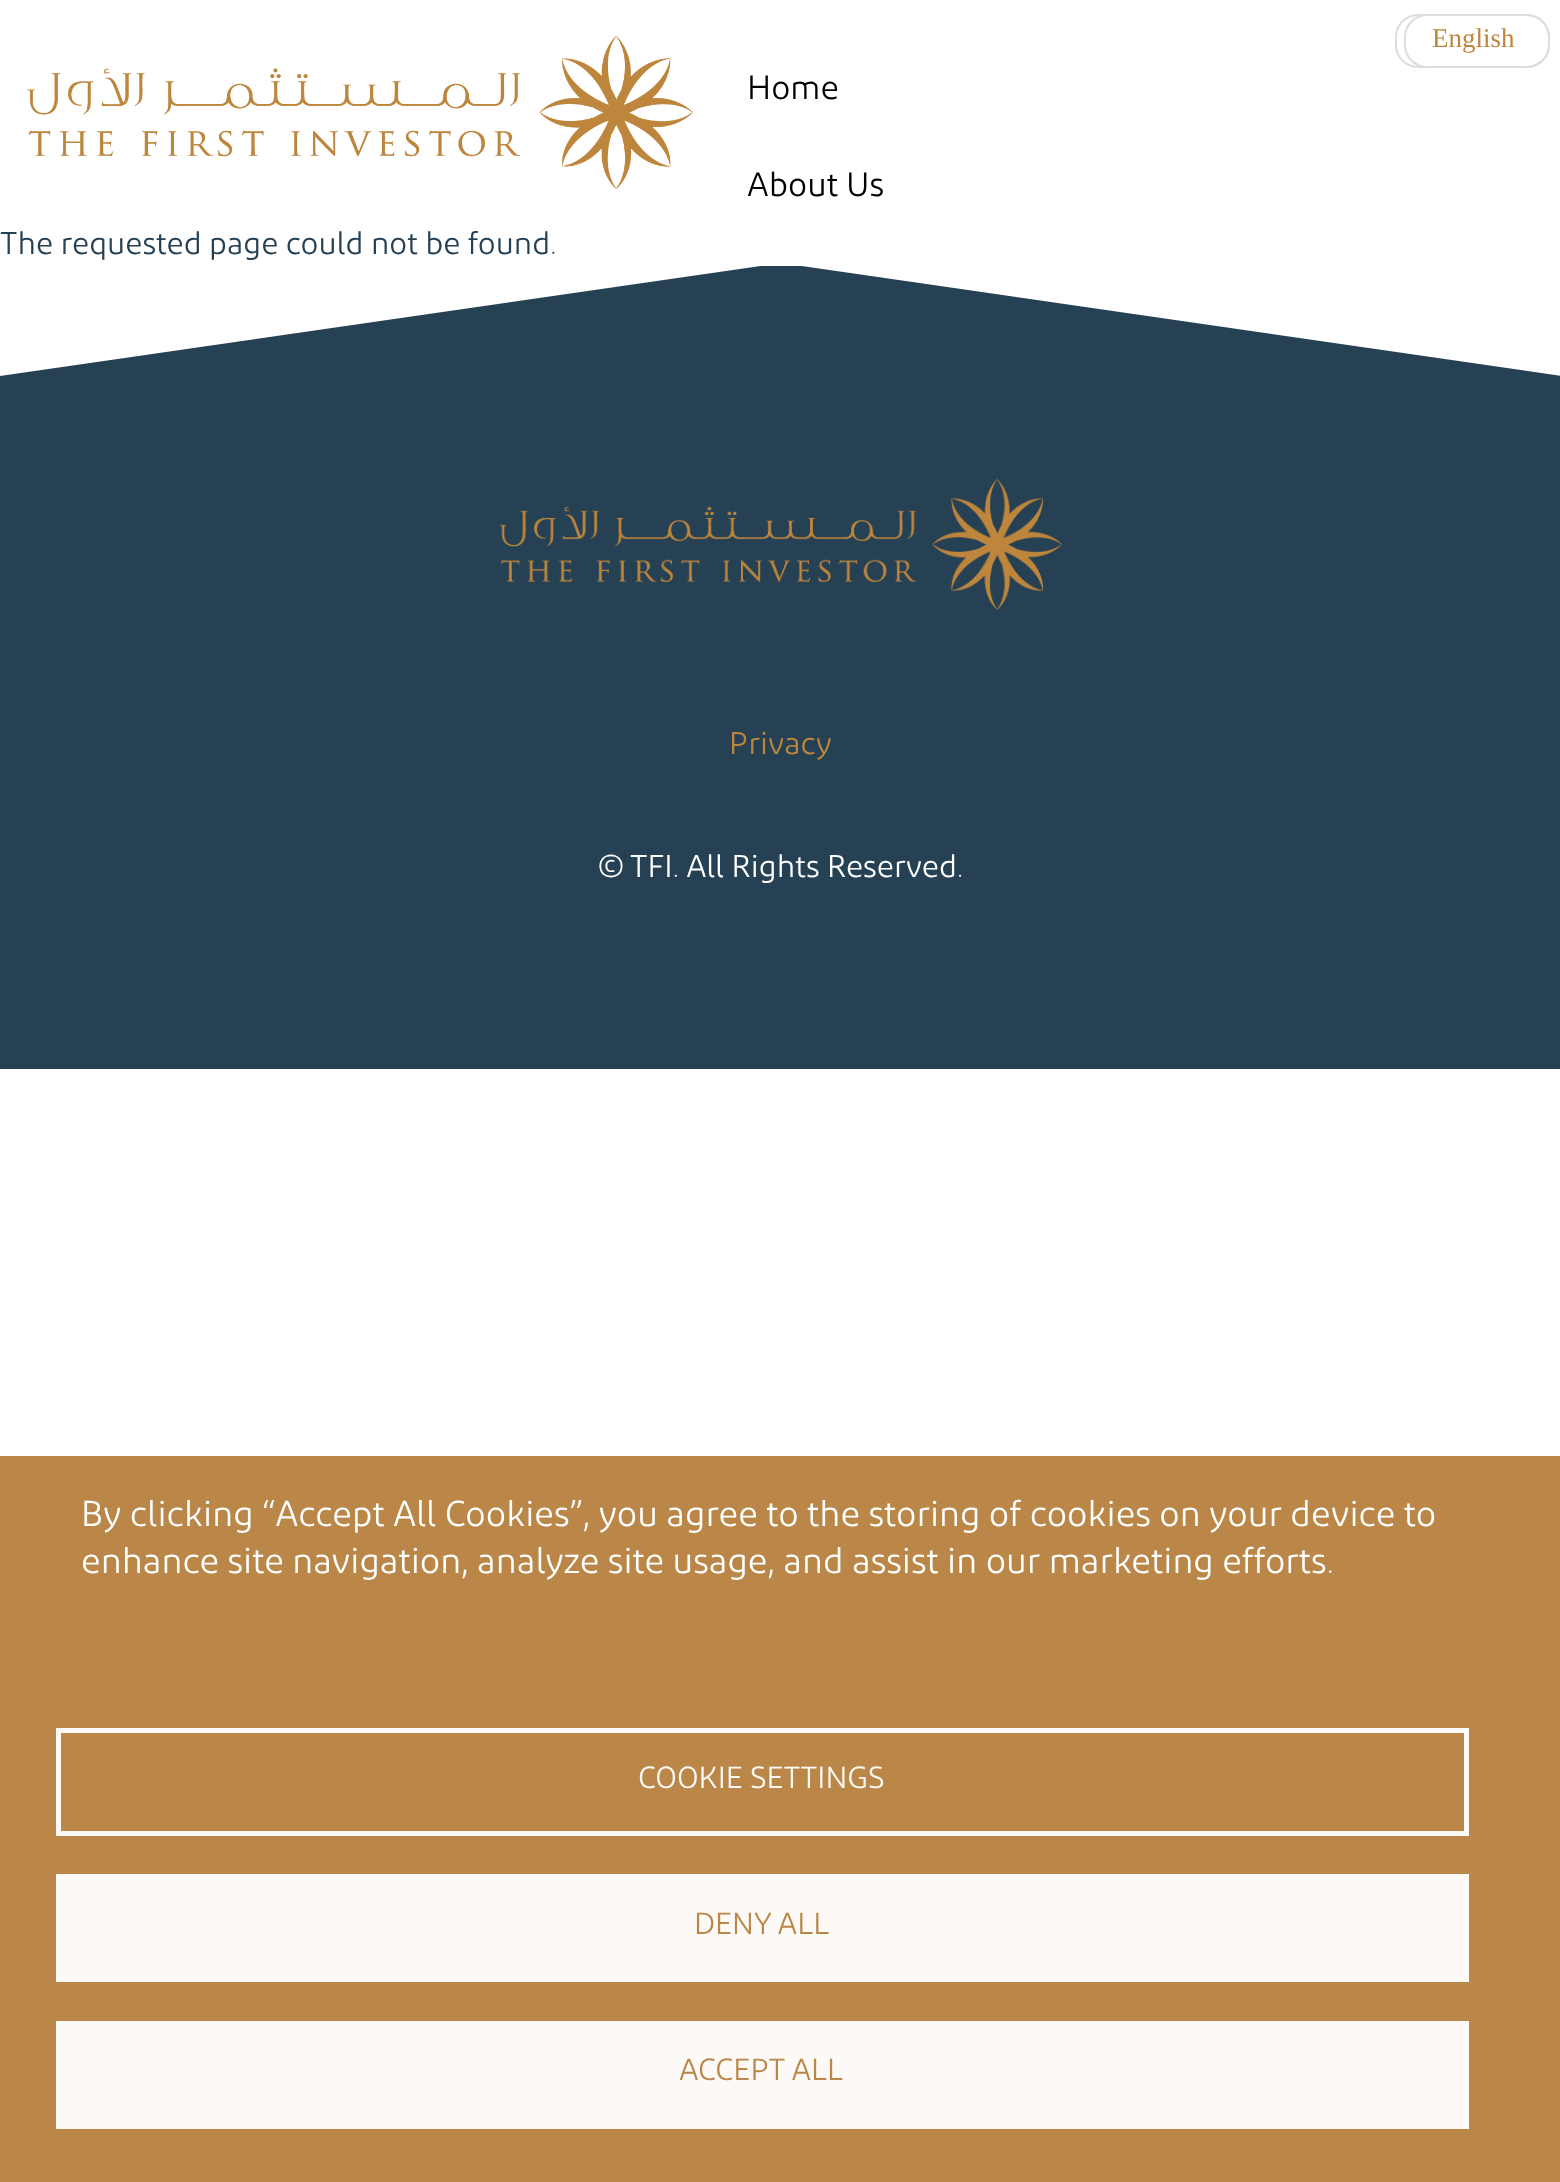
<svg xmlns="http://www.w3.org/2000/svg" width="1560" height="2182">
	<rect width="100%" height="100%" fill="#FFFFFF" />
	<image x="27" y="36" width="666" height="153" href="assets/img1.png" />
	<rect x="1396" y="15" width="153" height="52" rx="22" fill="none" stroke="#DDDDDD" stroke-width="2" />
	<rect x="1405" y="15" width="144" height="52" rx="22" fill="none" stroke="#DDDDDD" stroke-width="2" />
	<text x="1432" y="47" font-family="Liberation Serif" font-size="27" fill="#BE863C">English</text>
	<g font-family="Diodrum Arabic" font-size="33.75" fill="#000000">
		<text x="747" y="99">Home</text>
		<text x="747" y="196">About Us</text>
	</g>
	<text x="0" y="254" font-family="Diodrum Arabic" font-size="31.5" fill="#264154">The requested page could not be found.</text>
	<rect x="0" y="266" width="1560" height="803" fill="#264154" />
	<path d="M0 263H781L0 376Z" fill="#FFFFFF" />
	<path d="M781 263H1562V376Z" fill="#FFFFFF" />
	<image x="499" y="479" width="563" height="131" href="assets/img2.png" />
	<text x="729" y="754" font-family="Diodrum Arabic" font-size="31.5" fill="#BE863C">Privacy</text>
	<g font-family="Diodrum Arabic" font-size="31.5" fill="#FFFFFF">
		<text x="598" y="877">©</text>
		<text x="630" y="877">TFI. All Rights Reserved.</text>
	</g>
	<rect x="0" y="1456" width="1560" height="726" fill="#BA8748" />
	<g font-family="Diodrum Arabic" font-size="36" fill="#FFFFFF">
		<text x="81" y="1526">By clicking “Accept All Cookies”, you agree to the storing of cookies on your device to</text>
		<text x="81" y="1573">enhance site navigation, analyze site usage, and assist in our marketing efforts.</text>
	</g>
	<rect x="58.5" y="1730.5" width="1408" height="103" fill="none" stroke="#FCF9F6" stroke-width="5" />
	<text x="638" y="1788" font-family="Diodrum Arabic" font-size="30.5" fill="#FCF9F6">COOKIE SETTINGS</text>
	<rect x="56" y="1874" width="1413" height="108" fill="#FCF9F6" />
	<text x="694" y="1934" font-family="Diodrum Arabic" font-size="30.5" fill="#BA8748">DENY ALL</text>
	<rect x="56" y="2021" width="1413" height="108" fill="#FCF9F6" />
	<text x="679" y="2080" font-family="Diodrum Arabic" font-size="30.5" fill="#BA8748">ACCEPT ALL</text>
</svg>
